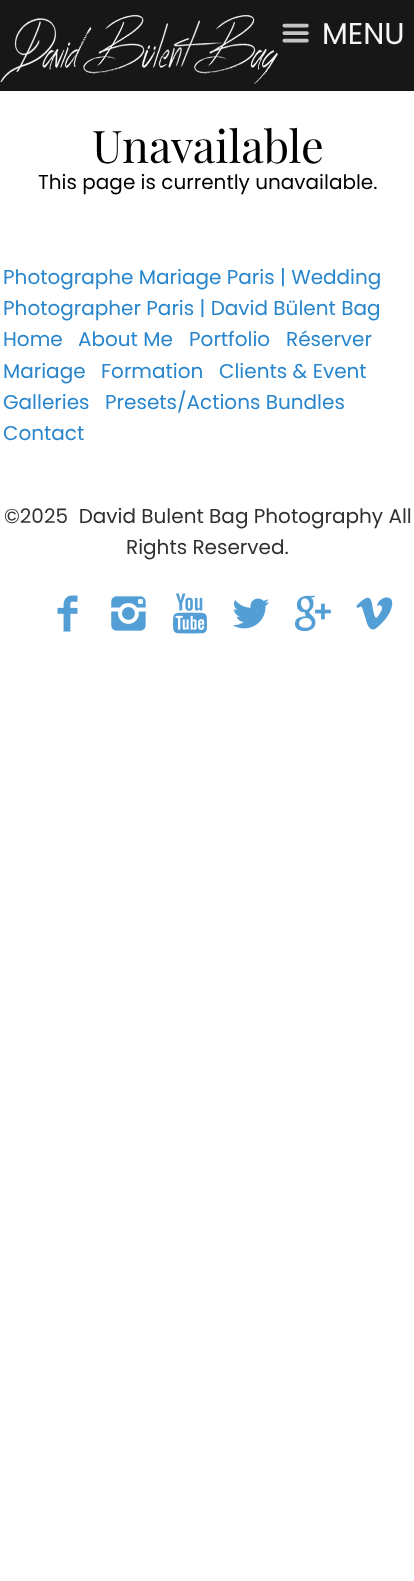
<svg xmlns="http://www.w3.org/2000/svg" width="414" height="1581">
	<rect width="100%" height="100%" fill="#FFFFFF" />
	<rect x="0" y="0" width="414" height="91" fill="#171717" />
	<image x="0" y="15" width="278" height="69" href="assets/img1.png" />
	<image x="282" y="23" width="27" height="20" href="assets/img2.png" />
	<text x="322" y="44" font-family="Poppins" font-size="30" fill="#F5F5F5">MENU</text>
	<text x="92" y="163" font-family="Playfair Display" font-size="45" fill="#000000">Unavailable</text>
	<text x="38" y="189" font-family="Poppins" font-size="20" fill="#000000">This page is currently unavailable.</text>
	<g font-family="Poppins" font-size="20" fill="#2986CC">
		<text x="3" y="284">Photographe Mariage Paris | Wedding</text>
		<text x="3" y="315">Photographer Paris | David Bülent Bag</text>
		<text x="3" y="346">Home</text>
		<text x="78" y="346">About Me</text>
		<text x="189" y="346">Portfolio</text>
		<text x="286" y="346">Réserver</text>
		<text x="3" y="378">Mariage</text>
		<text x="101" y="378">Formation</text>
		<text x="219" y="378">Clients &amp; Event</text>
		<text x="3" y="409">Galleries</text>
		<text x="105" y="409">Presets/Actions Bundles</text>
		<text x="3" y="440">Contact</text>
	</g>
	<g font-family="Poppins" font-size="20" fill="#303030">
		<text x="4" y="523" xml:space="preserve">©2025  David Bulent Bag Photography All</text>
		<text x="126" y="554">Rights Reserved.</text>
	</g>
	<image x="57" y="595" width="21" height="37" href="assets/img3.png" />
	<image x="111" y="596" width="35" height="35" href="assets/img4.png" />
	<image x="173" y="593" width="34" height="41" href="assets/img5.png" />
	<image x="232" y="598" width="38" height="31" href="assets/img6.png" />
	<image x="295" y="595" width="36" height="37" href="assets/img7.png" />
	<image x="356" y="597" width="37" height="33" href="assets/img8.png" />
</svg>
